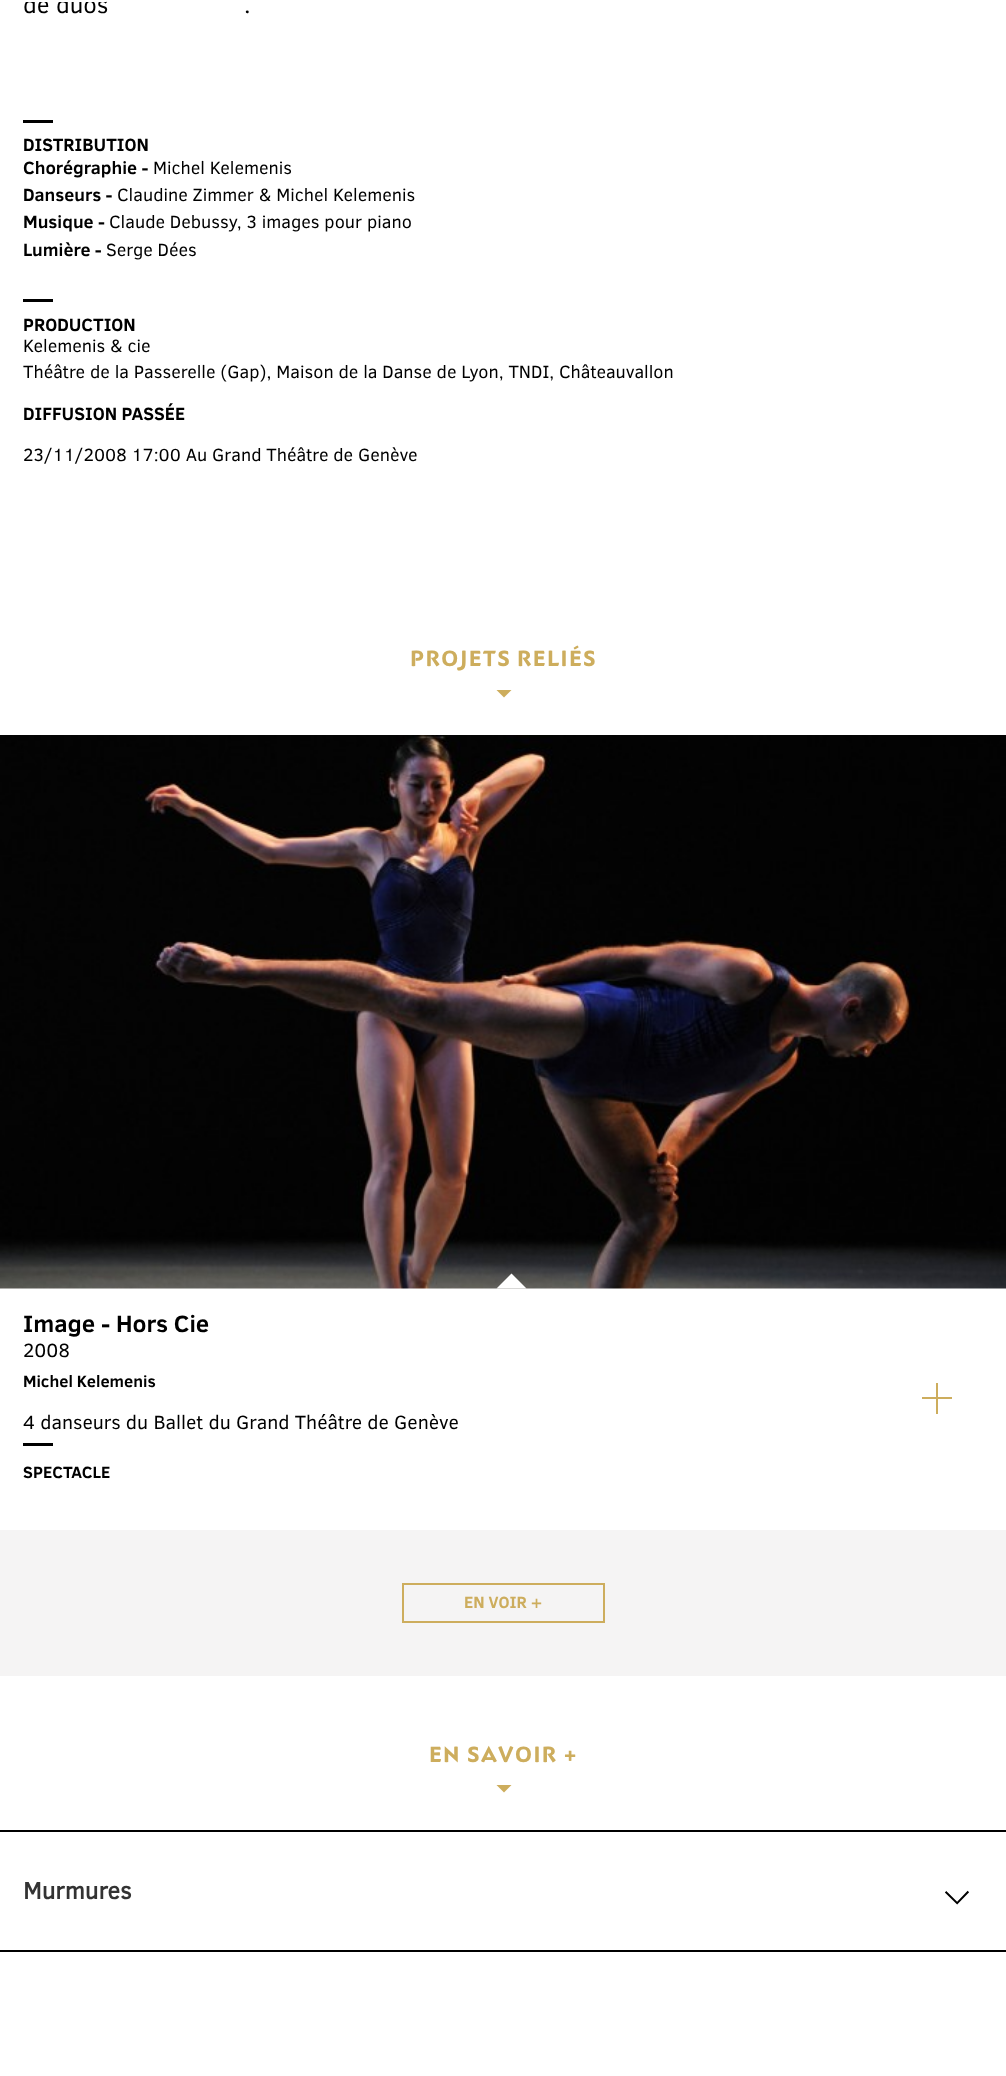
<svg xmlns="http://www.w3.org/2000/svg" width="1006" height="2076">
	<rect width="100%" height="100%" fill="#FFFFFF" />
	<g font-family="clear" font-size="24" fill="#000000">
		<text x="23" y="13">de duos</text>
		<text x="244" y="13">.</text>
	</g>
	<rect x="23" y="120" width="30" height="3" fill="#000000" />
	<g font-family="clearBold" font-size="18" font-weight="700" fill="#000000">
		<text x="23" y="151">DISTRIBUTION</text>
		<text x="23" y="174">Chorégraphie -</text>
	</g>
	<text x="153" y="174" font-family="clear" font-size="18" fill="#000000">Michel Kelemenis</text>
	<text x="23" y="201" font-family="clearBold" font-size="18" font-weight="700" fill="#000000">Danseurs -</text>
	<text x="117" y="201" font-family="clear" font-size="18" fill="#000000">Claudine Zimmer &amp; Michel Kelemenis</text>
	<text x="23" y="228" font-family="clearBold" font-size="18" font-weight="700" fill="#000000">Musique -</text>
	<text x="109" y="228" font-family="clear" font-size="18" fill="#000000">Claude Debussy, 3 images pour piano</text>
	<text x="23" y="256" font-family="clearBold" font-size="18" font-weight="700" fill="#000000">Lumière -</text>
	<text x="106" y="256" font-family="clear" font-size="18" fill="#000000">Serge Dées</text>
	<rect x="23" y="299" width="30" height="3" fill="#000000" />
	<text x="23" y="331" font-family="clearBold" font-size="18" font-weight="700" fill="#000000">PRODUCTION</text>
	<g font-family="clear" font-size="18" fill="#000000">
		<text x="23" y="352">Kelemenis &amp; cie</text>
		<text x="23" y="378">Théâtre de la Passerelle (Gap), Maison de la Danse de Lyon, TNDI, Châteauvallon</text>
	</g>
	<text x="23" y="420" font-family="clearBold" font-size="18" font-weight="700" fill="#000000">DIFFUSION PASSÉE</text>
	<text x="23" y="461" font-family="clear" font-size="18" fill="#000000">23/11/2008 17:00 Au Grand Théâtre de Genève</text>
	<text x="410" y="666" font-family="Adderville" font-size="24" font-weight="900" letter-spacing="1.5" fill="#CDAD5D">PROJETS RELIÉS</text>
	<path d="M496.5 690H511.5L504 697.5Z" fill="#CDAD5D" />
	<image x="0" y="735" width="1006" height="554" href="assets/img1.png" />
	<path d="M526.5 1288.5H496.5L511.5 1273.5Z" fill="#FFFFFF" />
	<rect x="936" y="1383" width="2" height="31" fill="#CDAD5D" />
	<rect x="922" y="1397" width="30" height="2" fill="#CDAD5D" />
	<text x="23" y="1332" font-family="clearBold" font-size="24" font-weight="700" fill="#000000">Image - Hors Cie</text>
	<text x="23" y="1357" font-family="clear" font-size="19.5" fill="#000000">2008</text>
	<text x="23" y="1387" font-family="clearBold" font-size="16.5" font-weight="700" fill="#000000">Michel Kelemenis</text>
	<text x="23" y="1429" font-family="clear" font-size="19.5" fill="#000000">4 danseurs du Ballet du Grand Théâtre de Genève</text>
	<rect x="23" y="1443" width="30" height="3" fill="#000000" />
	<text x="23" y="1478" font-family="clearBold" font-size="16.5" font-weight="700" fill="#000000">SPECTACLE</text>
	<rect x="0" y="1530" width="1006" height="146" fill="#F5F4F4" />
	<rect x="403" y="1584" width="201" height="38" fill="none" stroke="#CDAD5D" stroke-width="2" />
	<text x="464" y="1608" font-family="clearBold" font-size="16.5" font-weight="700" fill="#CDAD5D">EN VOIR +</text>
	<text x="429" y="1762" font-family="Adderville" font-size="24" font-weight="900" letter-spacing="1.5" fill="#CDAD5D">EN SAVOIR +</text>
	<path d="M496.5 1785H511.5L504 1792.5Z" fill="#CDAD5D" />
	<rect x="0" y="1830" width="1006" height="2" fill="#000000" />
	<rect x="0" y="1950" width="1006" height="2" fill="#000000" />
	<text x="23" y="1899" font-family="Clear" font-size="24" font-weight="700" fill="#333333">Murmures</text>
	<image x="945" y="1890" width="24" height="15" href="assets/img2.png" />
	<rect x="25" y="0" width="81" height="2" fill="#FFFFFF" />
</svg>
